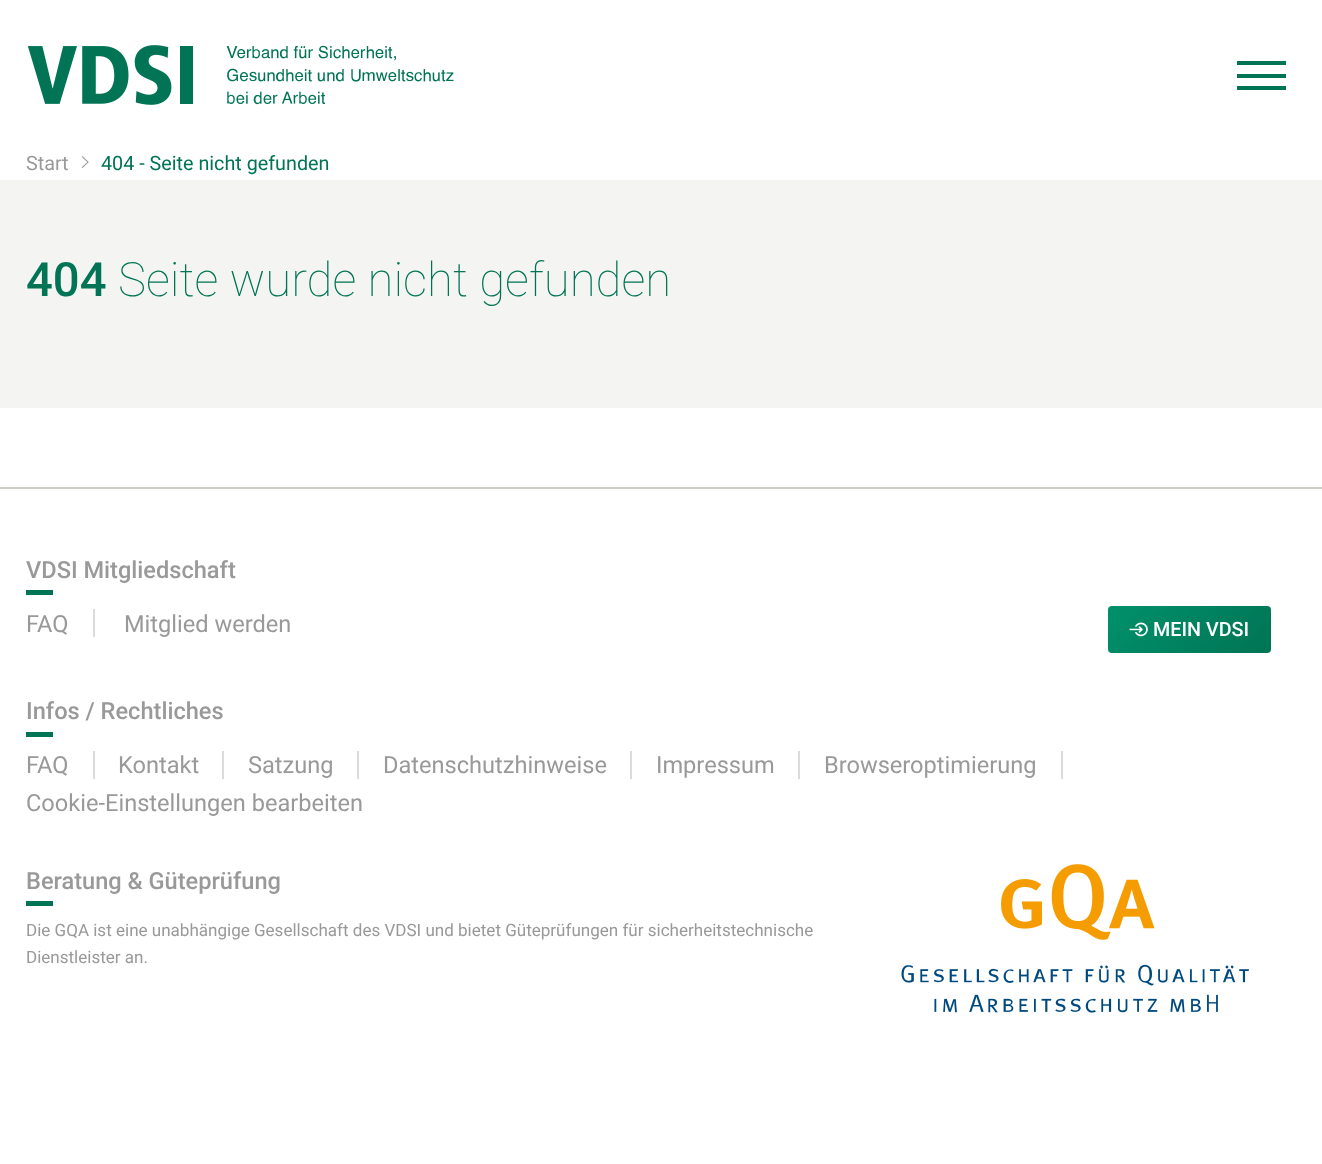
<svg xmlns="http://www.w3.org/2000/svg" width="1322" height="1164">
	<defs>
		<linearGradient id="g1" gradientUnits="userSpaceOnUse" x1="1137" y1="577" x2="1242" y2="682"><stop offset="0" stop-color="#00916A" /><stop offset="1" stop-color="#007455" /></linearGradient>
	</defs>
	<rect width="100%" height="100%" fill="#FFFFFF" />
	<image x="27" y="45" width="427" height="60" href="assets/img1.png" />
	<rect x="1237" y="61" width="49" height="4" fill="#007455" />
	<rect x="1237" y="74" width="49" height="4" fill="#007455" />
	<rect x="1237" y="86" width="49" height="4" fill="#007455" />
	<text x="26" y="170" font-family="Roboto" font-size="19.75" fill="#999999">Start</text>
	<image x="81" y="156" width="8" height="12" href="assets/img2.png" />
	<text x="101" y="170" font-family="Roboto" font-size="19.75" fill="#007455">404 - Seite nicht gefunden</text>
	<rect x="0" y="180" width="1322" height="228" fill="#F4F4F2" />
	<text x="26" y="296" font-family="Roboto" font-size="47.25" font-weight="500" fill="#007455">404</text>
	<text x="118" y="296" font-family="Roboto" font-size="47.25" font-weight="100" fill="#007455">Seite wurde nicht gefunden</text>
	<rect x="0" y="487" width="1322" height="2" fill="#D0CEC2" />
	<text x="26" y="578" font-family="Roboto" font-size="23.6" font-weight="500" fill="#999999">VDSI Mitgliedschaft</text>
	<rect x="26" y="590" width="27" height="5" fill="#007455" />
	<text x="26" y="632" font-family="Roboto" font-size="23.6" fill="#999999">FAQ</text>
	<rect x="93" y="609" width="2" height="28" fill="#DCDBD8" />
	<text x="124" y="632" font-family="Roboto" font-size="23.6" fill="#999999">Mitglied werden</text>
	<rect x="1108" y="606" width="163" height="47" rx="4" fill="url(#g1)" />
	<image x="1129" y="622" width="19" height="15" href="assets/img3.png" />
	<text x="1153" y="636" font-family="Roboto" font-size="19.75" font-weight="500" fill="#FFFFFF">MEIN VDSI</text>
	<text x="26" y="719" font-family="Roboto" font-size="23.6" font-weight="500" fill="#999999">Infos / Rechtliches</text>
	<rect x="26" y="732" width="27" height="5" fill="#007455" />
	<text x="26" y="773" font-family="Roboto" font-size="23.6" fill="#999999">FAQ</text>
	<rect x="93" y="751" width="2" height="28" fill="#DCDBD8" />
	<text x="118" y="773" font-family="Roboto" font-size="23.6" fill="#999999">Kontakt</text>
	<rect x="222" y="751" width="2" height="28" fill="#DCDBD8" />
	<text x="248" y="773" font-family="Roboto" font-size="23.6" fill="#999999">Satzung</text>
	<rect x="357" y="751" width="2" height="28" fill="#DCDBD8" />
	<text x="383" y="773" font-family="Roboto" font-size="23.6" fill="#999999">Datenschutzhinweise</text>
	<rect x="630" y="751" width="2" height="28" fill="#DCDBD8" />
	<text x="656" y="773" font-family="Roboto" font-size="23.6" fill="#999999">Impressum</text>
	<rect x="798" y="751" width="2" height="28" fill="#DCDBD8" />
	<text x="824" y="773" font-family="Roboto" font-size="23.6" fill="#999999">Browseroptimierung</text>
	<rect x="1061" y="751" width="2" height="28" fill="#DCDBD8" />
	<text x="26" y="811" font-family="Roboto" font-size="23.6" fill="#999999">Cookie-Einstellungen bearbeiten</text>
	<text x="26" y="889" font-family="Roboto" font-size="23.6" font-weight="500" fill="#999999">Beratung &amp; Güteprüfung</text>
	<rect x="26" y="901" width="27" height="5" fill="#007455" />
	<g font-family="Roboto" font-size="17.05" fill="#999999">
		<text x="26" y="936">Die GQA ist eine unabhängige Gesellschaft des VDSI und bietet Güteprüfungen für sicherheitstechnische</text>
		<text x="26" y="963">Dienstleister an.</text>
	</g>
	<image x="901" y="864" width="348" height="149" href="assets/img4.png" />
</svg>
